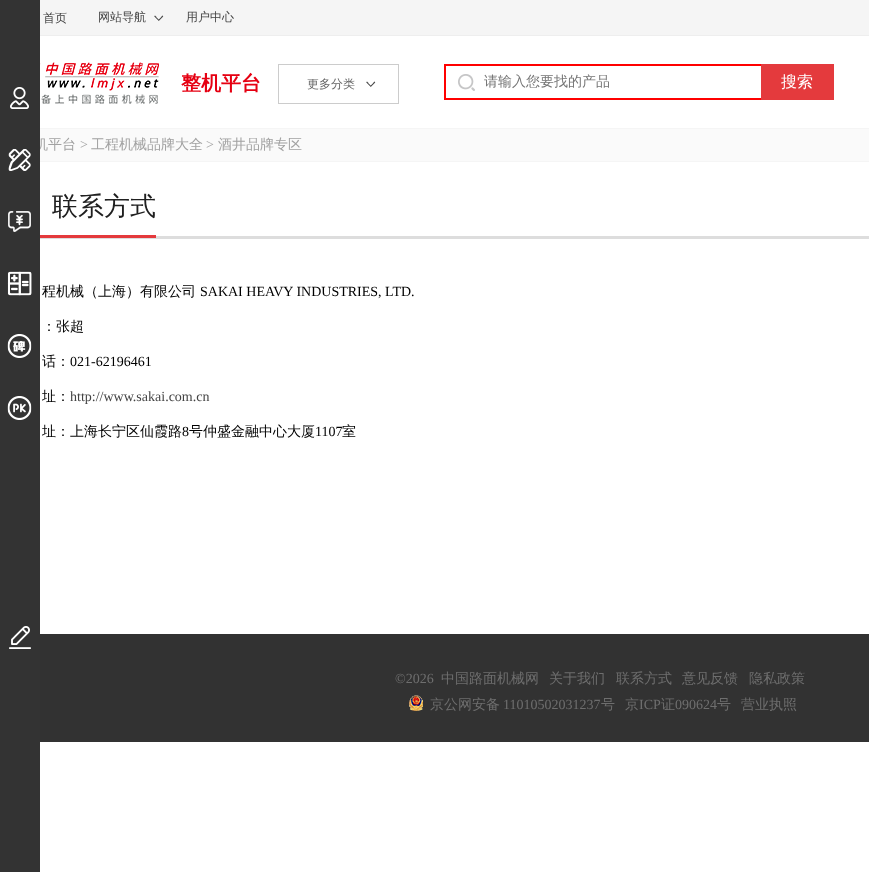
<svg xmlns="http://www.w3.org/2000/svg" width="869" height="872">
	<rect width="100%" height="100%" fill="#FFFFFF" />
	<rect x="40" y="129" width="829" height="32" fill="#FAFAFA" />
	<rect x="0.5" y="128.5" width="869" height="33" fill="none" stroke="#F5F5F5" />
	<text x="34" y="149" font-family="WenQuanYi Zen Hei" font-size="14" font-weight="500" fill="#A2A2A2">机平台</text>
	<rect x="0" y="0" width="40" height="872" fill="#333333" />
	<image x="10" y="87" width="19" height="22" href="assets/img1.png" />
	<image x="8" y="149" width="23" height="22" href="assets/img2.png" />
	<image x="8" y="211" width="23" height="21" href="assets/img3.png" />
	<image x="7" y="271" width="25" height="25" href="assets/img4.png" />
	<image x="7" y="334" width="25" height="24" href="assets/img5.png" />
	<image x="7" y="396" width="25" height="24" href="assets/img6.png" />
	<image x="9" y="626" width="22" height="23" href="assets/img7.png" />
	<rect x="40" y="0" width="829" height="35" fill="#F5F5F5" />
	<rect x="40" y="35" width="829" height="1" fill="#EEEEEE" />
	<text x="43" y="22" font-family="WenQuanYi Zen Hei" font-size="12" font-weight="500" fill="#444444">首页</text>
	<image x="154" y="15" width="10" height="6" href="assets/img8.png" />
	<g font-family="WenQuanYi Zen Hei" font-size="12" font-weight="500" fill="#444444">
		<text x="98" y="21">网站导航</text>
		<text x="186" y="21">用户中心</text>
	</g>
	<image x="40" y="62" width="119" height="42" href="assets/img9.png" />
	<text x="181" y="90" font-family="WenQuanYi Zen Hei" font-size="20" font-weight="700" fill="#E60012">整机平台</text>
	<image x="366" y="81" width="10" height="6" href="assets/img10.png" />
	<rect x="278.5" y="64.5" width="120" height="39" fill="none" stroke="#CCCCCC" />
	<text x="307" y="88" font-family="WenQuanYi Zen Hei" font-size="12" font-weight="500" fill="#666666">更多分类</text>
	<image x="458" y="74" width="17" height="17" href="assets/img11.png" />
	<rect x="445" y="65" width="388" height="34" fill="none" stroke="#FF0000" stroke-width="2" />
	<text x="484" y="86" font-family="WenQuanYi Zen Hei" font-size="14" font-weight="500" fill="#757575">请输入您要找的产品</text>
	<rect x="761" y="64" width="73" height="36" fill="#E43A3D" />
	<text x="781" y="87" font-family="WenQuanYi Zen Hei" font-size="16" font-weight="500" fill="#FFFFFF">搜索</text>
	<text x="80" y="149" font-family="Liberation Serif" font-size="14" fill="#A2A2A2">&gt;</text>
	<text x="91" y="149" font-family="WenQuanYi Zen Hei" font-size="14" font-weight="500" fill="#A2A2A2">工程机械品牌大全</text>
	<text x="206" y="149" font-family="Liberation Serif" font-size="14" fill="#A2A2A2">&gt;</text>
	<text x="218" y="149" font-family="WenQuanYi Zen Hei" font-size="14" font-weight="500" fill="#A2A2A2">酒井品牌专区</text>
	<rect x="40" y="236" width="829" height="3" fill="#DDDDDD" />
	<rect x="40" y="235" width="116" height="3" fill="#E4393C" />
	<text x="52" y="215" font-family="WenQuanYi Zen Hei" font-size="26" font-weight="500" fill="#202020">联系方式</text>
	<text x="42" y="296" font-family="WenQuanYi Zen Hei" font-size="14" font-weight="500" fill="#000000">程机械（上海）有限公司</text>
	<text x="200" y="296" font-family="Liberation Serif" font-size="14" fill="#000000">SAKAI HEAVY INDUSTRIES, LTD.</text>
	<g font-family="WenQuanYi Zen Hei" font-size="14" font-weight="500" fill="#000000">
		<text x="42" y="331">：张超</text>
		<text x="42" y="366">话：</text>
	</g>
	<text x="70" y="366" font-family="Liberation Serif" font-size="14" fill="#000000">021-62196461</text>
	<text x="42" y="401" font-family="WenQuanYi Zen Hei" font-size="14" font-weight="500" fill="#000000">址：</text>
	<text x="70" y="401" font-family="Liberation Serif" font-size="14" fill="#444444">http://www.sakai.com.cn</text>
	<text x="42" y="436" font-family="WenQuanYi Zen Hei" font-size="14" font-weight="500" fill="#000000">址：上海长宁区仙霞路</text>
	<text x="182" y="436" font-family="Liberation Serif" font-size="14" fill="#000000">8</text>
	<text x="189" y="436" font-family="WenQuanYi Zen Hei" font-size="14" font-weight="500" fill="#000000">号仲盛金融中心大厦</text>
	<text x="315" y="436" font-family="Liberation Serif" font-size="14" fill="#000000">1107</text>
	<text x="342" y="436" font-family="WenQuanYi Zen Hei" font-size="14" font-weight="500" fill="#000000">室</text>
	<rect x="40" y="634" width="829" height="108" fill="#323232" />
	<text x="395" y="683" font-family="Liberation Serif" font-size="14" fill="#6E6E6E">©2026</text>
	<g font-family="WenQuanYi Zen Hei" font-size="14" font-weight="500" fill="#6E6E6E">
		<text x="441" y="683">中国路面机械网</text>
		<text x="549" y="683">关于我们</text>
		<text x="616" y="683">联系方式</text>
		<text x="682" y="683">意见反馈</text>
		<text x="749" y="683">隐私政策</text>
	</g>
	<image x="409" y="695" width="14" height="16" href="assets/img12.png" />
	<text x="430" y="709" font-family="WenQuanYi Zen Hei" font-size="14" font-weight="500" fill="#6E6E6E">京公网安备</text>
	<text x="503" y="709" font-family="Liberation Serif" font-size="14" fill="#6E6E6E">11010502031237</text>
	<g font-family="WenQuanYi Zen Hei" font-size="14" font-weight="500" fill="#6E6E6E">
		<text x="601" y="709">号</text>
		<text x="625" y="709">京</text>
	</g>
	<text x="639" y="709" font-family="Liberation Serif" font-size="14" fill="#6E6E6E">ICP</text>
	<text x="661" y="709" font-family="WenQuanYi Zen Hei" font-size="14" font-weight="500" fill="#6E6E6E">证</text>
	<text x="675" y="709" font-family="Liberation Serif" font-size="14" fill="#6E6E6E">090624</text>
	<g font-family="WenQuanYi Zen Hei" font-size="14" font-weight="500" fill="#6E6E6E">
		<text x="717" y="709">号</text>
		<text x="741" y="709">营业执照</text>
	</g>
</svg>
